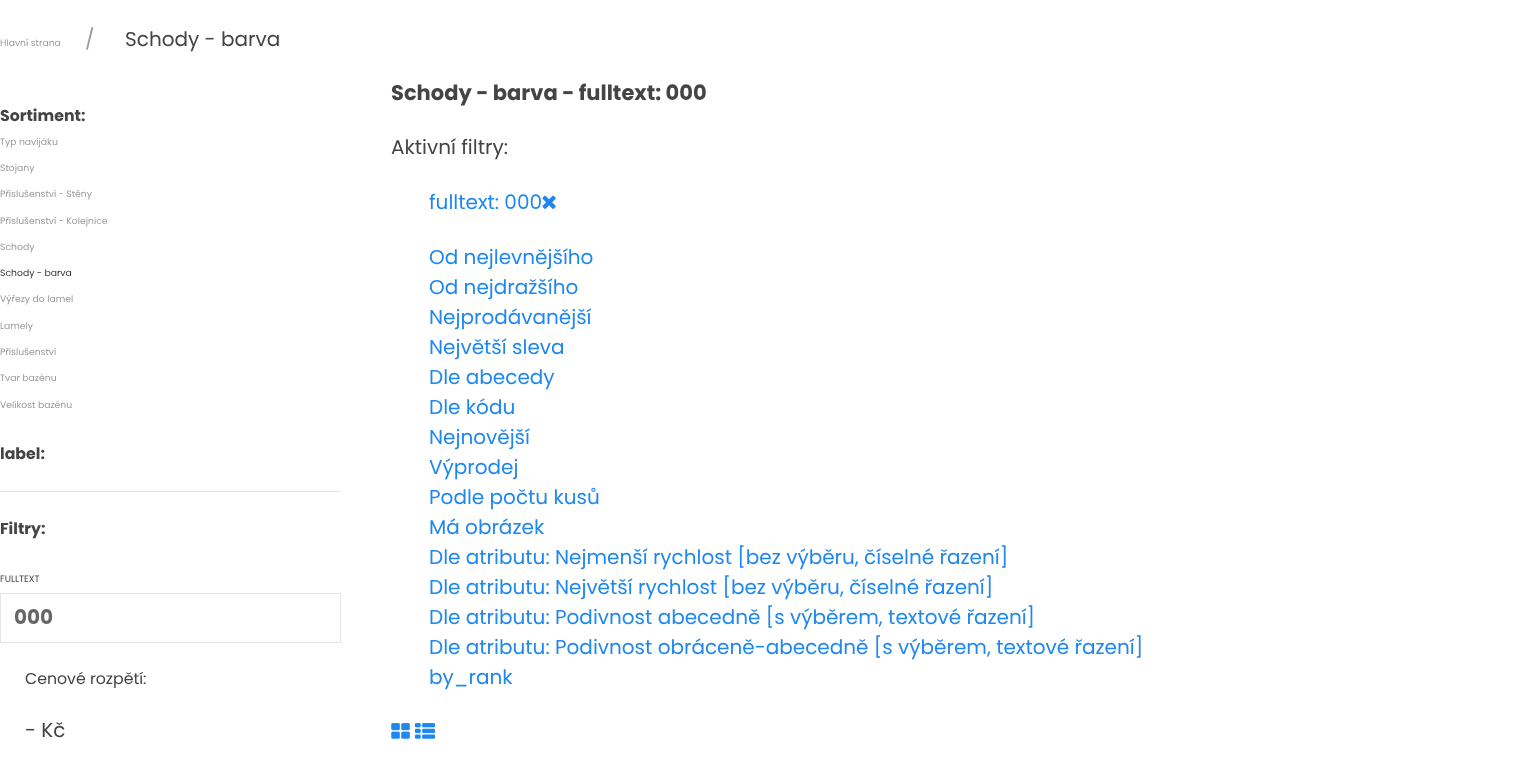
<svg xmlns="http://www.w3.org/2000/svg" width="1515" height="763">
	<rect width="100%" height="100%" fill="#FFFFFF" />
	<text x="0" y="46" font-family="Poppins" font-size="9.25" fill="#999999">Hlavní strana</text>
	<text x="85" y="46" font-family="Poppins" font-size="20" fill="#999999">/</text>
	<text x="125" y="46" font-family="Poppins" font-size="20" fill="#444444">Schody - barva</text>
	<text x="0" y="121" font-family="Poppins" font-size="15.75" font-weight="700" fill="#444444">Sortiment:</text>
	<g font-family="Poppins" font-size="9.25" fill="#999999">
		<text x="0" y="145">Typ navijáku</text>
		<text x="0" y="171">Stojany</text>
		<text x="0" y="197">Příslušenství - Stěny</text>
		<text x="0" y="224">Příslušenství - Kolejnice</text>
		<text x="0" y="250">Schody</text>
	</g>
	<text x="0" y="276" font-family="Poppins" font-size="9.25" fill="#333333">Schody - barva</text>
	<g font-family="Poppins" font-size="9.25" fill="#999999">
		<text x="0" y="302">Výřezy do lamel</text>
		<text x="0" y="329">Lamely</text>
		<text x="0" y="355">Příslušenství</text>
		<text x="0" y="381">Tvar bazénu</text>
		<text x="0" y="408">Velikost bazénu</text>
	</g>
	<text x="0" y="459" font-family="Poppins" font-size="15.75" font-weight="700" fill="#444444">label:</text>
	<rect x="0" y="491" width="341" height="1" fill="#E5E5E5" />
	<text x="0" y="534" font-family="Poppins" font-size="15.75" font-weight="700" fill="#444444">Filtry:</text>
	<text x="0" y="582" font-family="Poppins" font-size="9.25" fill="#444444">FULLTEXT</text>
	<rect x="0.5" y="593.5" width="340" height="49" fill="none" stroke="#E5E5E5" />
	<text x="14" y="624" font-family="Poppins" font-size="20" font-weight="700" fill="#666666">000</text>
	<text x="25" y="684" font-family="Poppins" font-size="15.75" fill="#444444">Cenové rozpětí:</text>
	<text x="25" y="737" font-family="Poppins" font-size="20" fill="#444444">- Kč</text>
	<text x="391" y="100" font-family="Poppins" font-size="21" font-weight="700" fill="#444444">Schody - barva - fulltext: 000</text>
	<text x="391" y="154" font-family="Poppins" font-size="20" fill="#444444">Aktivní filtry:</text>
	<text x="429" y="209" font-family="Poppins" font-size="20" fill="#1E87F0">fulltext: 000</text>
	<image x="542" y="195" width="14" height="14" href="assets/img1.png" />
	<g font-family="Poppins" font-size="20" fill="#1E87F0">
		<text x="429" y="264">Od nejlevnějšího</text>
		<text x="429" y="294">Od nejdražšího</text>
		<text x="429" y="324">Nejprodávanější</text>
		<text x="429" y="354">Největší sleva</text>
		<text x="429" y="384">Dle abecedy</text>
		<text x="429" y="414">Dle kódu</text>
		<text x="429" y="444">Nejnovější</text>
		<text x="429" y="474">Výprodej</text>
		<text x="429" y="504">Podle počtu kusů</text>
		<text x="429" y="534">Má obrázek</text>
		<text x="429" y="564">Dle atributu: Nejmenší rychlost [bez výběru, číselné řazení]</text>
		<text x="429" y="594">Dle atributu: Největší rychlost [bez výběru, číselné řazení]</text>
		<text x="429" y="624">Dle atributu: Podivnost abecedně [s výběrem, textové řazení]</text>
		<text x="429" y="654">Dle atributu: Podivnost obráceně-abecedně [s výběrem, textové řazení]</text>
		<text x="429" y="684">by_rank</text>
	</g>
	<image x="391" y="723" width="19" height="16" href="assets/img2.png" />
	<image x="415" y="723" width="20" height="16" href="assets/img3.png" />
</svg>
